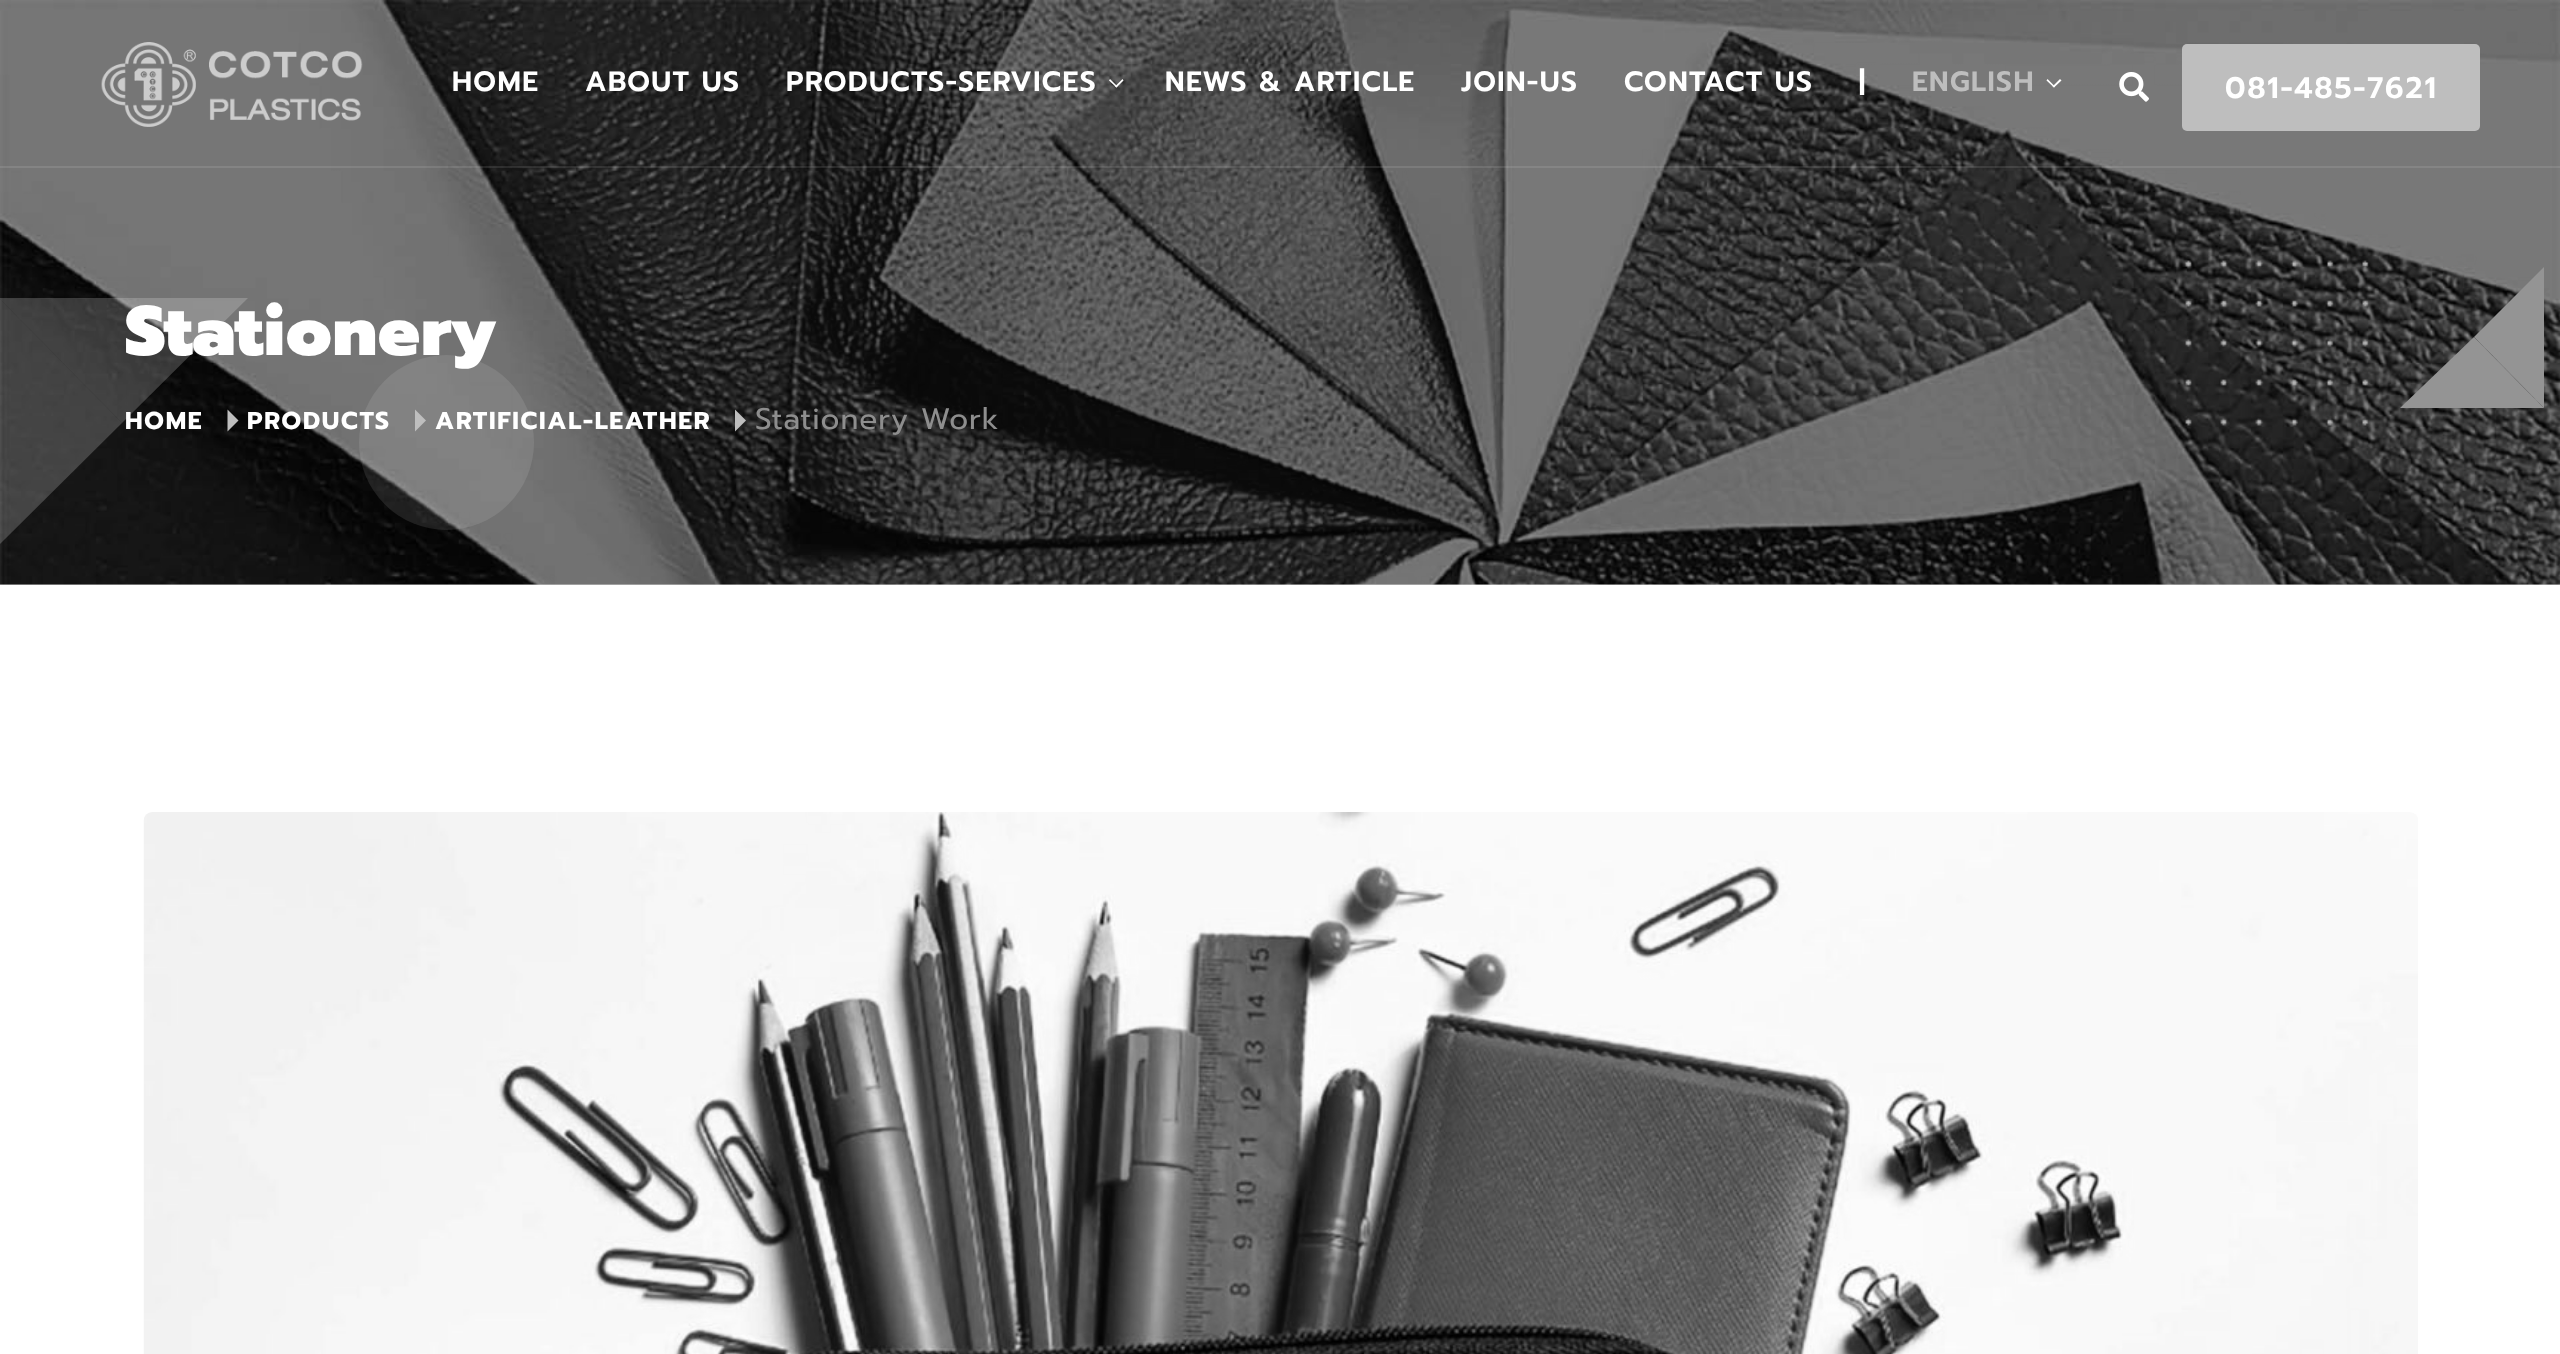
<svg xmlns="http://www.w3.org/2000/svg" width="2560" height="1354">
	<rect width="100%" height="100%" fill="#FFFFFF" />
	<rect x="0" y="584" width="2560" height="1" fill="#CECECE" />
	<image x="0" y="0" width="2560" height="585" href="assets/img3.png" />
	<rect x="0" y="166" width="2560" height="2" fill="#FFFFFF" fill-opacity="0.1" />
	<image x="101" y="42" width="262" height="85" href="assets/img1.png" />
	<g font-family="Prompt" font-size="28" font-weight="600" letter-spacing="1.4" fill="#FFFFFF">
		<text x="452" y="91">HOME</text>
		<text x="585" y="91">ABOUT US</text>
		<text x="786" y="91">PRODUCTS-SERVICES</text>
	</g>
	<path d="M1122.5 79L1123.5 80.5L1116.5 87.5L1115 86.5Z" fill="#FFFFFF" />
	<path d="M1110 79L1117.5 86.5L1116.5 87.5L1109 80.5Z" fill="#FFFFFF" />
	<g font-family="Prompt" font-size="28" font-weight="600" letter-spacing="1.4" fill="#FFFFFF">
		<text x="1165" y="91">NEWS &amp; ARTICLE</text>
		<text x="1461" y="91">JOIN-US</text>
		<text x="1624" y="91">CONTACT US</text>
		<text x="1859" y="91">|</text>
	</g>
	<text x="1912" y="91" font-family="Prompt" font-size="28" font-weight="600" letter-spacing="1.4" fill="#BEBEBE">ENGLISH</text>
	<path d="M2060 79L2061.5 80.5L2054 87.5L2052.5 86.5Z" fill="#FFFFFF" />
	<path d="M2047.5 79L2055 86.5L2054 87.5L2046.5 80.5Z" fill="#FFFFFF" />
	<image x="2119" y="72" width="30" height="30" href="assets/img2.png" />
	<rect x="2182" y="44" width="298" height="87" rx="5" fill="#BEBEBE" />
	<text x="2225" y="98" font-family="Prompt" font-size="29.75" font-weight="600" letter-spacing="1.75" fill="#FFFFFF">081-485-7621</text>
	<path d="M-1 545V298L122 423Z" fill="#FFFFFF" fill-opacity="0.2" />
	<path d="M-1 298H248L122 423Z" fill="#FFFFFF" fill-opacity="0.2" />
	<circle cx="446.5" cy="442.5" r="87.5" fill="#FFFFFF" fill-opacity="0.1" />
	<text x="125" y="355" font-family="Prompt" font-size="70" font-weight="900" letter-spacing="0.9" fill="#FFFFFF">Stationery</text>
	<text x="125" y="429" font-family="Prompt" font-size="24.5" font-weight="700" letter-spacing="1.75" fill="#FFFFFF">HOME</text>
	<path d="M238.5 420.5L227.5 431.5V409.5Z" fill="#BEBEBE" />
	<text x="247" y="429" font-family="Prompt" font-size="24.5" font-weight="700" letter-spacing="1.75" fill="#FFFFFF">PRODUCTS</text>
	<path d="M426 420.5L415 431.5V409.5Z" fill="#BEBEBE" />
	<text x="435" y="429" font-family="Prompt" font-size="24.5" font-weight="700" letter-spacing="1.75" fill="#FFFFFF">ARTIFICIAL-LEATHER</text>
	<path d="M746 420.5L735 431.5V409.5Z" fill="#BEBEBE" />
	<text x="755" y="429" font-family="Prompt" font-size="29.75" letter-spacing="0.9" fill="#8E8E8E">Stationery Work</text>
	<image x="2185" y="260" width="184" height="166" href="assets/img4.png" />
	<path d="M2544 267V408L2474 337Z" fill="#949494" />
	<path d="M2544 408H2400L2474 337Z" fill="#949494" />
	<image x="143" y="812" width="2275" height="542" href="assets/img5.png" />
</svg>
